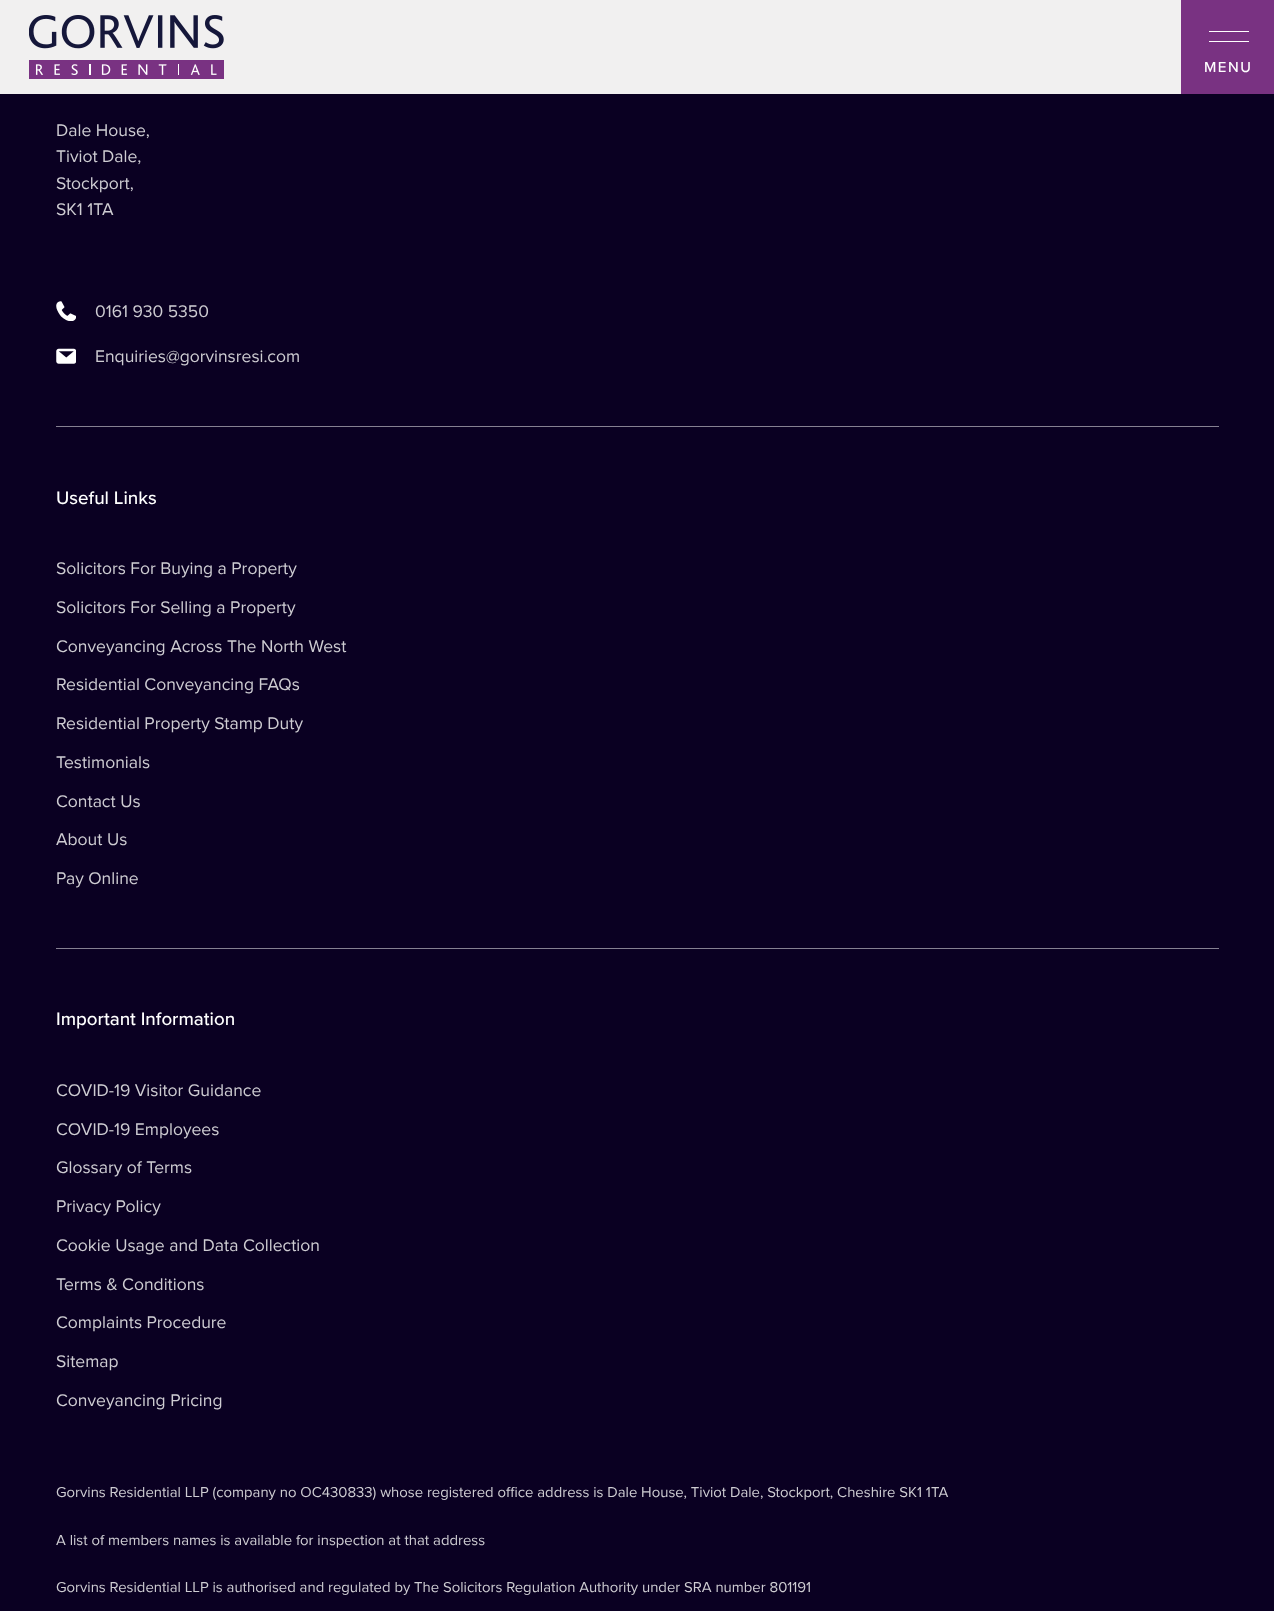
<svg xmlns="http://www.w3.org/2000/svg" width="1274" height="1611">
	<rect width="100%" height="100%" fill="#0A0022" />
	<rect x="0" y="0" width="1181" height="94" fill="#F1F0F0" />
	<image x="29" y="15" width="195" height="64" href="assets/img1.png" />
	<rect x="1181" y="0" width="93" height="94" fill="#793282" />
	<rect x="1209" y="31" width="40" height="1" fill="#FFFFFF" />
	<rect x="1209" y="41" width="40" height="1" fill="#FFFFFF" />
	<text x="1204" y="72" font-family="Proxima Nova" font-size="15" font-weight="500" letter-spacing="1.5" fill="#FFFFFF">MENU</text>
	<rect x="56" y="426" width="1163" height="1" fill="#858091" />
	<g font-family="Proxima Nova" font-size="17.5" fill="#CECCD2">
		<text x="56" y="136">Dale House,</text>
		<text x="56" y="162">Tiviot Dale,</text>
		<text x="56" y="189">Stockport,</text>
		<text x="56" y="215">SK1 1TA</text>
	</g>
	<image x="56" y="301" width="20" height="20" href="assets/img2.png" />
	<text x="95" y="317" font-family="Proxima Nova" font-size="17.5" fill="#CECCD2">0161 930 5350</text>
	<image x="56" y="348" width="20" height="16" href="assets/img3.png" />
	<text x="95" y="362" font-family="Proxima Nova" font-size="17.5" fill="#CECCD2">Enquiries@gorvinsresi.com</text>
	<rect x="56" y="948" width="1163" height="1" fill="#858091" />
	<text x="56" y="504" font-family="Proxima Nova" font-size="18.75" font-weight="500" fill="#FFFFFF">Useful Links</text>
	<g font-family="Proxima Nova" font-size="17.5" fill="#CECCD2">
		<text x="56" y="574">Solicitors For Buying a Property</text>
		<text x="56" y="613">Solicitors For Selling a Property</text>
		<text x="56" y="652">Conveyancing Across The North West</text>
		<text x="56" y="690">Residential Conveyancing FAQs</text>
		<text x="56" y="729">Residential Property Stamp Duty</text>
		<text x="56" y="768">Testimonials</text>
		<text x="56" y="807">Contact Us</text>
		<text x="56" y="845">About Us</text>
		<text x="56" y="884">Pay Online</text>
	</g>
	<text x="56" y="1025" font-family="Proxima Nova" font-size="18.75" font-weight="500" fill="#FFFFFF">Important Information</text>
	<g font-family="Proxima Nova" font-size="17.5" fill="#CECCD2">
		<text x="56" y="1096">COVID-19 Visitor Guidance</text>
		<text x="56" y="1135">COVID-19 Employees</text>
		<text x="56" y="1173">Glossary of Terms</text>
		<text x="56" y="1212">Privacy Policy</text>
		<text x="56" y="1251">Cookie Usage and Data Collection</text>
		<text x="56" y="1290">Terms &amp; Conditions</text>
		<text x="56" y="1328">Complaints Procedure</text>
		<text x="56" y="1367">Sitemap</text>
		<text x="56" y="1406">Conveyancing Pricing</text>
	</g>
	<g font-family="Proxima Nova" font-size="14.88" fill="#CECCD2">
		<text x="56" y="1497">Gorvins Residential LLP (company no OC430833) whose registered office address is Dale House, Tiviot Dale, Stockport, Cheshire SK1 1TA</text>
		<text x="56" y="1545">A list of members names is available for inspection at that address</text>
		<text x="56" y="1592">Gorvins Residential LLP is authorised and regulated by The Solicitors Regulation Authority under SRA number 801191</text>
	</g>
</svg>
